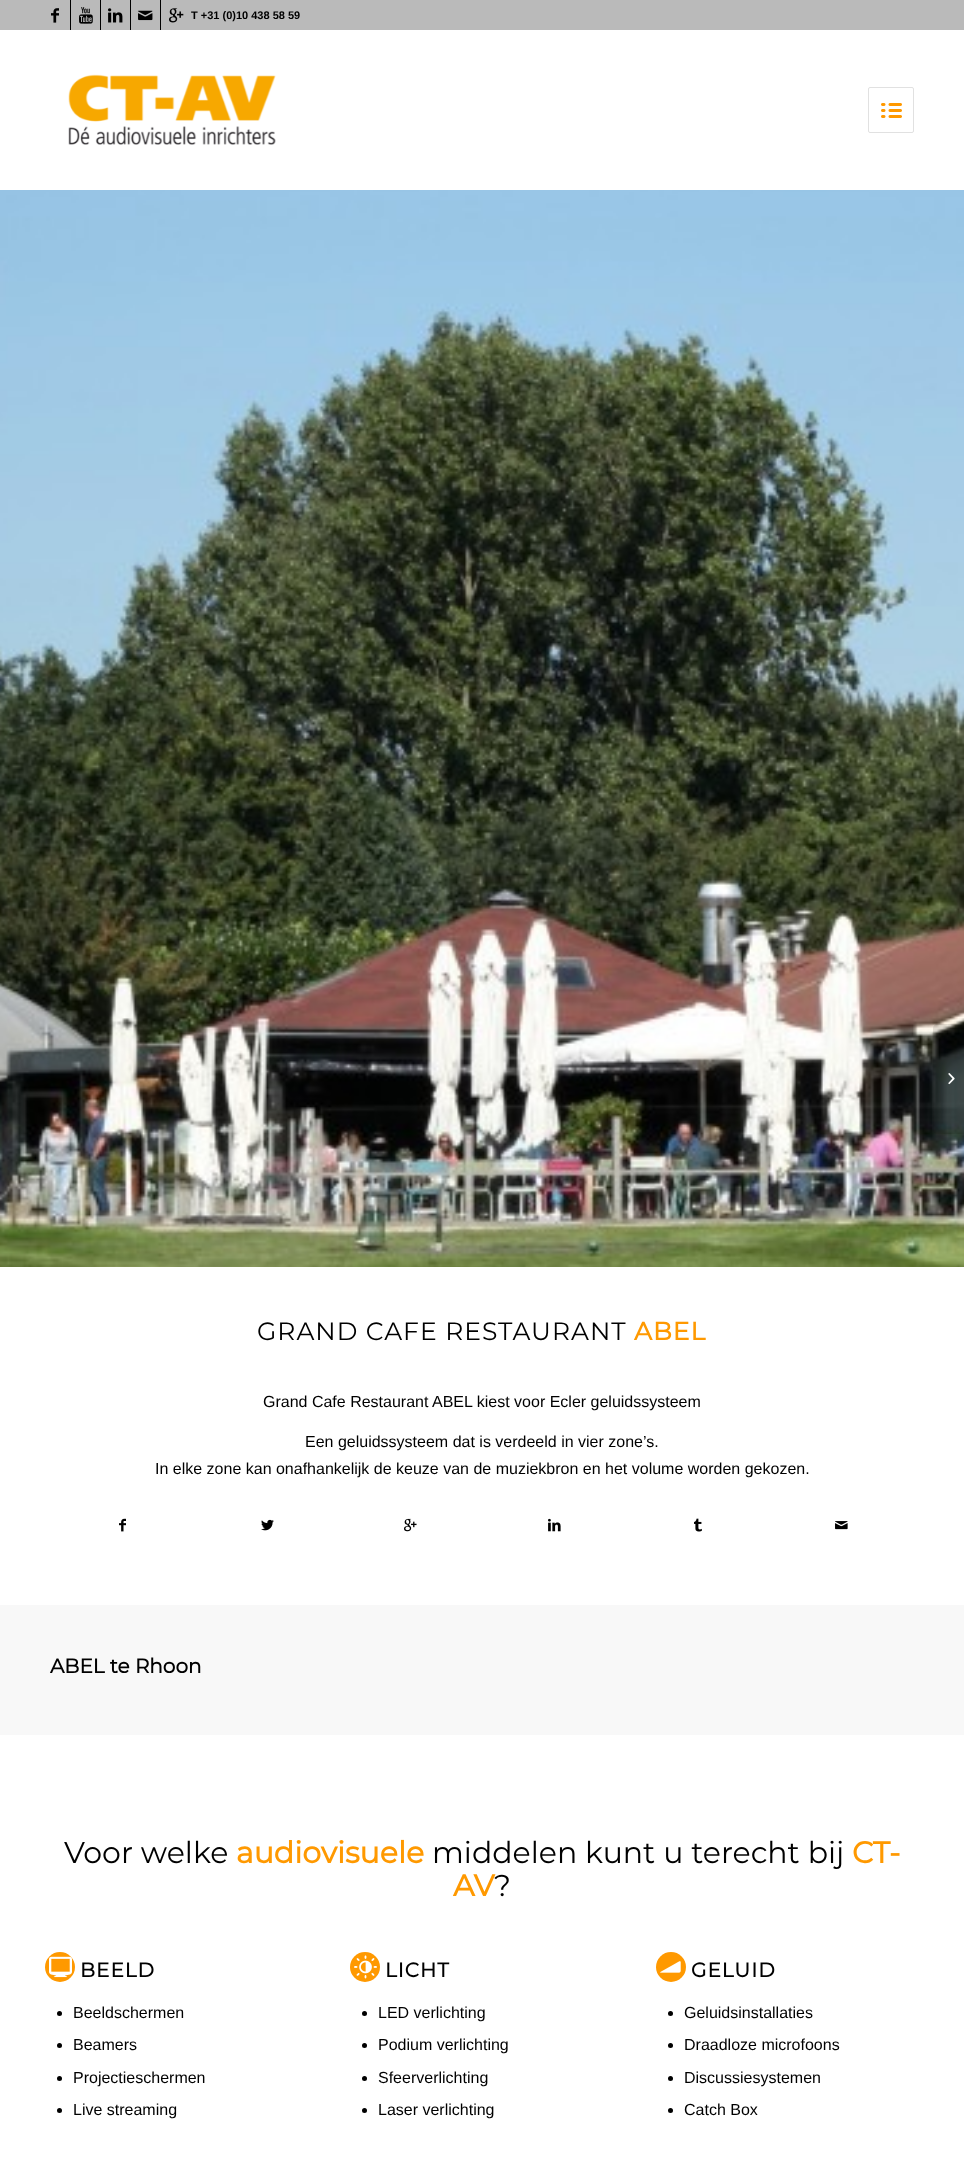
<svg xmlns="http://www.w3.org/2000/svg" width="964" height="2158">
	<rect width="100%" height="100%" fill="#FFFFFF" />
	<rect x="0" y="0" width="964" height="30" fill="#BABABA" />
	<rect x="70" y="0" width="1" height="30" fill="#000000" />
	<image x="51" y="8" width="8" height="15" href="assets/img1.png" />
	<rect x="100" y="0" width="1" height="30" fill="#000000" />
	<image x="79" y="7" width="14" height="17" href="assets/img2.png" />
	<rect x="130" y="0" width="1" height="30" fill="#000000" />
	<image x="108" y="8" width="15" height="15" href="assets/img3.png" />
	<rect x="160" y="0" width="1" height="30" fill="#000000" />
	<image x="138" y="10" width="15" height="11" href="assets/img4.png" />
	<image x="169" y="8" width="15" height="15" href="assets/img5.png" />
	<text x="191" y="19" font-family="Liberation Sans" font-size="11" font-weight="700" fill="#000000">T +31 (0)10 438 58 59</text>
	<image x="68" y="74" width="208" height="71" href="assets/img6.png" />
	<rect x="868.5" y="87.5" width="45" height="45" rx="1.5" fill="none" stroke="#E1E1E1" />
	<image x="881" y="103" width="21" height="15" href="assets/img7.png" />
	<image x="0" y="190" width="964" height="1077" href="assets/img9.png" />
	<path d="M937 1024H964V1134H937C935 1134 933 1132 933 1130V1028C933 1026 935 1024 937 1024Z" fill="#000000" fill-opacity="0.1" />
	<image x="948" y="1073" width="7" height="12" href="assets/img8.png" />
	<text x="257" y="1340" font-family="Montserrat" font-size="25" font-weight="100" letter-spacing="1" fill="#000000">GRAND CAFE RESTAURANT</text>
	<text x="634" y="1340" font-family="Montserrat" font-size="25" font-weight="700" letter-spacing="1" fill="#FF9900">ABEL</text>
	<g font-family="Liberation Sans" font-size="16" fill="#000000">
		<text x="263" y="1407">Grand Cafe Restaurant ABEL kiest voor Ecler geluidssysteem</text>
		<text x="305" y="1447">Een geluidssysteem dat is verdeeld in vier zone’s.</text>
		<text x="155" y="1474">In elke zone kan onafhankelijk de keuze van de muziekbron en het volume worden gekozen.</text>
	</g>
	<image x="119" y="1518" width="7" height="14" href="assets/img10.png" />
	<image x="261" y="1519" width="13" height="12" href="assets/img11.png" />
	<image x="404" y="1518" width="13" height="14" href="assets/img12.png" />
	<image x="548" y="1518" width="13" height="14" href="assets/img13.png" />
	<image x="694" y="1518" width="8" height="14" href="assets/img14.png" />
	<image x="835" y="1521" width="13" height="9" href="assets/img15.png" />
	<rect x="0" y="1605" width="964" height="130" fill="#F8F8F8" />
	<text x="50" y="1673" font-family="Montserrat" font-size="20" font-weight="700" fill="#000000">ABEL te Rhoon</text>
	<text x="64" y="1863" font-family="Montserrat" font-size="30" font-weight="100" fill="#000000">Voor welke</text>
	<text x="236" y="1863" font-family="Montserrat" font-size="30" font-weight="700" fill="#FF9900">audiovisuele</text>
	<text x="432" y="1863" font-family="Montserrat" font-size="30" font-weight="100" fill="#000000">middelen kunt u terecht bij</text>
	<g font-family="Montserrat" font-size="30" font-weight="700" fill="#FF9900">
		<text x="852" y="1863">CT-</text>
		<text x="453" y="1896">AV</text>
	</g>
	<text x="494" y="1896" font-family="Montserrat" font-size="30" font-weight="100" fill="#000000">?</text>
	<circle cx="60" cy="1967" r="15" fill="#FF9900" />
	<image x="49" y="1956" width="23" height="22" href="assets/img16.png" />
	<text x="80" y="1977" font-family="Montserrat" font-size="20" font-weight="700" letter-spacing="1" fill="#000000">BEELD</text>
	<circle cx="59.5" cy="2013.5" r="2.5" fill="#000000" />
	<text x="73" y="2018" font-family="Liberation Sans" font-size="16" fill="#000000">Beeldschermen</text>
	<circle cx="59.5" cy="2045.5" r="2.5" fill="#000000" />
	<text x="73" y="2050" font-family="Liberation Sans" font-size="16" fill="#000000">Beamers</text>
	<circle cx="59.5" cy="2078.5" r="2.5" fill="#000000" />
	<text x="73" y="2083" font-family="Liberation Sans" font-size="16" fill="#000000">Projectieschermen</text>
	<circle cx="59.5" cy="2110.5" r="2.5" fill="#000000" />
	<text x="73" y="2115" font-family="Liberation Sans" font-size="16" fill="#000000">Live streaming</text>
	<circle cx="365" cy="1967" r="15" fill="#FF9900" />
	<image x="354" y="1955" width="23" height="24" href="assets/img17.png" />
	<text x="385" y="1977" font-family="Montserrat" font-size="20" font-weight="700" letter-spacing="1" fill="#000000">LICHT</text>
	<circle cx="364.5" cy="2013.5" r="2.5" fill="#000000" />
	<text x="378" y="2018" font-family="Liberation Sans" font-size="16" fill="#000000">LED verlichting</text>
	<circle cx="364.5" cy="2045.5" r="2.5" fill="#000000" />
	<text x="378" y="2050" font-family="Liberation Sans" font-size="16" fill="#000000">Podium verlichting</text>
	<circle cx="364.5" cy="2078.5" r="2.5" fill="#000000" />
	<text x="378" y="2083" font-family="Liberation Sans" font-size="16" fill="#000000">Sfeerverlichting</text>
	<circle cx="364.5" cy="2110.5" r="2.5" fill="#000000" />
	<text x="378" y="2115" font-family="Liberation Sans" font-size="16" fill="#000000">Laser verlichting</text>
	<circle cx="671" cy="1967" r="15" fill="#FF9900" />
	<image x="660" y="1961" width="21" height="12" href="assets/img18.png" />
	<text x="691" y="1977" font-family="Montserrat" font-size="20" font-weight="700" letter-spacing="1" fill="#000000">GELUID</text>
	<circle cx="670.5" cy="2013.5" r="2.5" fill="#000000" />
	<text x="684" y="2018" font-family="Liberation Sans" font-size="16" fill="#000000">Geluidsinstallaties</text>
	<circle cx="670.5" cy="2045.5" r="2.5" fill="#000000" />
	<text x="684" y="2050" font-family="Liberation Sans" font-size="16" fill="#000000">Draadloze microfoons</text>
	<circle cx="670.5" cy="2078.5" r="2.5" fill="#000000" />
	<text x="684" y="2083" font-family="Liberation Sans" font-size="16" fill="#000000">Discussiesystemen</text>
	<circle cx="670.5" cy="2110.5" r="2.5" fill="#000000" />
	<text x="684" y="2115" font-family="Liberation Sans" font-size="16" fill="#000000">Catch Box</text>
</svg>
